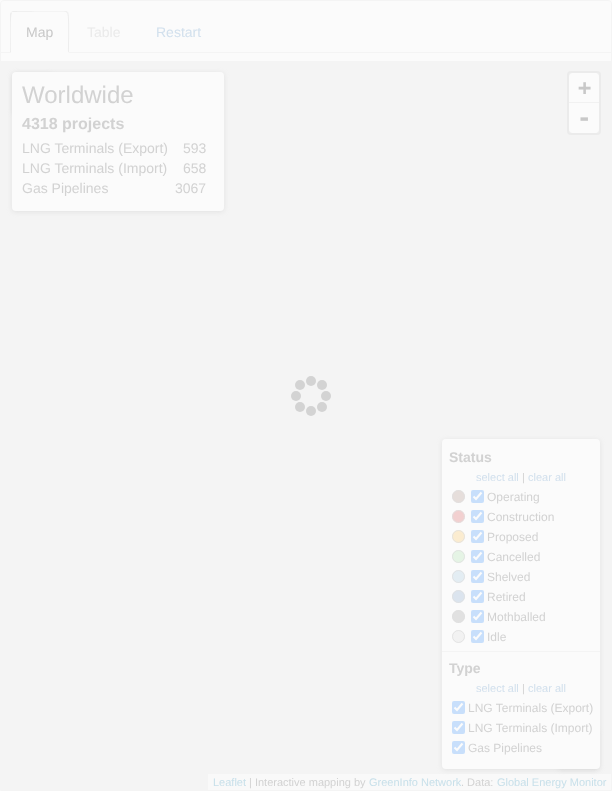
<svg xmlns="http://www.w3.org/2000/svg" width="612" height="791">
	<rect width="100%" height="100%" fill="#FBFBFB" />
	<path d="M4 .5H608C610 .5 611.5 2 611.5 4V790.5H.5V4C.5 2 2 .5 4 .5Z" fill="none" stroke="#F4F4F4" />
	<rect x="1" y="52" width="610" height="1" fill="#F4F4F4" />
	<path d="M13 11H66C67.5 11 69 12.5 69 14V53H10V14C10 12.5 11.5 11 13 11Z" fill="#FBFBFB" />
	<path d="M13 11L11 12H12C13 12 62 11 66 12L67 13L68 12L66 11Z" fill="#EDEDED" />
	<path d="M69 53C69 48 70 14 68 12L67 13C69 14 68 47 68 52Z" fill="#EDEDED" />
	<path d="M69 53L68 52H11L10 53Z" fill="#FBFBFB" />
	<path d="M10 53L11 52C11 47 10 14 12 13L11 12L10 14Z" fill="#EDEDED" />
	<text x="26" y="37" font-family="Liberation Sans" font-size="14" fill="#C8C8C8">Map</text>
	<text x="87" y="37" font-family="Liberation Sans" font-size="14" fill="#EAEAEA">Table</text>
	<text x="156" y="37" font-family="Liberation Sans" font-size="14" fill="#D2E0ED">Restart</text>
	<rect x="1" y="61" width="610" height="729" fill="#F4F4F4" />
	<rect x="13" y="74" width="40" height="40" rx="4" fill="#C8C8C8" fill-opacity="0.4" filter="blur(2.5px)" />
	<rect x="568" y="72" width="32" height="62" rx="3" fill="none" stroke="#EBEBEB" stroke-width="2" />
	<path d="M573 73H595C597 73 599 75 599 77V103H569V77C569 75 571 73 573 73Z" fill="#FBFBFB" />
	<rect x="569" y="102" width="30" height="1" fill="#F1F1F1" />
	<text x="578" y="95" font-family="DejaVu Sans Mono" font-size="22" font-weight="700" fill="#C8C8C8">+</text>
	<path d="M569 103H599V129C599 131 597 133 595 133H573C571 133 569 131 569 129Z" fill="#FBFBFB" />
	<text x="577" y="126" font-family="DejaVu Sans Mono" font-size="24" font-weight="700" fill="#C8C8C8">-</text>
	<rect x="208" y="774" width="403" height="16" fill="#F9F9F9" />
	<text x="213" y="786" font-family="Liberation Sans" font-size="11" fill="#C8E0EA">Leaflet</text>
	<text x="249" y="786" font-family="Liberation Sans" font-size="11" fill="#D2D2D2">| Interactive mapping by</text>
	<text x="369" y="786" font-family="Liberation Sans" font-size="11" fill="#C8E0EA">GreenInfo Network</text>
	<text x="461" y="786" font-family="Liberation Sans" font-size="11" fill="#D2D2D2">. Data:</text>
	<text x="497" y="786" font-family="Liberation Sans" font-size="11" fill="#C8E0EA">Global Energy Monitor</text>
	<rect x="12" y="73" width="212" height="139" rx="4" fill="#C8C8C8" fill-opacity="0.4" filter="blur(2.5px)" />
	<rect x="12" y="72" width="212" height="139" rx="4" fill="#FBFBFB" />
	<text x="22" y="103" font-family="Liberation Sans" font-size="24" fill="#D2D2D2">Worldwide</text>
	<text x="22" y="129" font-family="Liberation Sans" font-size="16" font-weight="700" fill="#D2D2D2">4318 projects</text>
	<g font-family="Liberation Sans" font-size="14" fill="#D2D2D2">
		<text x="22" y="153">LNG Terminals (Export)</text>
		<text x="183" y="153">593</text>
		<text x="22" y="173">LNG Terminals (Import)</text>
		<text x="183" y="173">658</text>
		<text x="22" y="193">Gas Pipelines</text>
		<text x="175" y="193">3067</text>
	</g>
	<rect x="442" y="440" width="158" height="330" rx="4" fill="#C8C8C8" fill-opacity="0.4" filter="blur(2.5px)" />
	<rect x="558" y="730" width="40" height="40" rx="4" fill="#C8C8C8" fill-opacity="0.4" filter="blur(2.5px)" />
	<rect x="442" y="439" width="158" height="330" rx="4" fill="#FBFBFB" />
	<text x="449" y="462" font-family="Liberation Sans" font-size="14" font-weight="700" fill="#D2D2D2">Status</text>
	<text x="476" y="481" font-family="Liberation Sans" font-size="11" fill="#D2E0ED">select all</text>
	<text x="522" y="481" font-family="Liberation Sans" font-size="11" fill="#D2D2D2">|</text>
	<text x="528" y="481" font-family="Liberation Sans" font-size="11" fill="#D2E0ED">clear all</text>
	<rect x="471" y="490" width="13" height="13" rx="2" fill="#C8DFFB" />
	<path d="M473.5 496.5L476 499L481.5 492.5" fill="none" stroke="#FBFBFB" stroke-width="2.1" />
	<circle cx="458.5" cy="496.5" r="6.5" fill="#E6DEDB" />
	<circle cx="458.5" cy="496.5" r="6" fill="none" stroke="#E0E0E0" stroke-opacity="0.8" />
	<text x="487" y="501" font-family="Liberation Sans" font-size="12" fill="#D2D2D2">Operating</text>
	<rect x="471" y="510" width="13" height="13" rx="2" fill="#C8DFFB" />
	<path d="M473.5 516.5L476 519L481.5 512.5" fill="none" stroke="#FBFBFB" stroke-width="2.1" />
	<circle cx="458.5" cy="516.5" r="6.5" fill="#F2D0D0" />
	<circle cx="458.5" cy="516.5" r="6" fill="none" stroke="#E0E0E0" stroke-opacity="0.8" />
	<text x="487" y="521" font-family="Liberation Sans" font-size="12" fill="#D2D2D2">Construction</text>
	<rect x="471" y="530" width="13" height="13" rx="2" fill="#C8DFFB" />
	<path d="M473.5 536.5L476 539L481.5 532.5" fill="none" stroke="#FBFBFB" stroke-width="2.1" />
	<circle cx="458.5" cy="536.5" r="6.5" fill="#FBECD0" />
	<circle cx="458.5" cy="536.5" r="6" fill="none" stroke="#E0E0E0" stroke-opacity="0.8" />
	<text x="487" y="541" font-family="Liberation Sans" font-size="12" fill="#D2D2D2">Proposed</text>
	<rect x="471" y="550" width="13" height="13" rx="2" fill="#C8DFFB" />
	<path d="M473.5 556.5L476 559L481.5 552.5" fill="none" stroke="#FBFBFB" stroke-width="2.1" />
	<circle cx="458.5" cy="556.5" r="6.5" fill="#E5F4E5" />
	<circle cx="458.5" cy="556.5" r="6" fill="none" stroke="#E0E0E0" stroke-opacity="0.8" />
	<text x="487" y="561" font-family="Liberation Sans" font-size="12" fill="#D2D2D2">Cancelled</text>
	<rect x="471" y="570" width="13" height="13" rx="2" fill="#C8DFFB" />
	<path d="M473.5 576.5L476 579L481.5 572.5" fill="none" stroke="#FBFBFB" stroke-width="2.1" />
	<circle cx="458.5" cy="576.5" r="6.5" fill="#E3EDF3" />
	<circle cx="458.5" cy="576.5" r="6" fill="none" stroke="#E0E0E0" stroke-opacity="0.8" />
	<text x="487" y="581" font-family="Liberation Sans" font-size="12" fill="#D2D2D2">Shelved</text>
	<rect x="471" y="590" width="13" height="13" rx="2" fill="#C8DFFB" />
	<path d="M473.5 596.5L476 599L481.5 592.5" fill="none" stroke="#FBFBFB" stroke-width="2.1" />
	<circle cx="458.5" cy="596.5" r="6.5" fill="#DBE4EE" />
	<circle cx="458.5" cy="596.5" r="6" fill="none" stroke="#E0E0E0" stroke-opacity="0.8" />
	<text x="487" y="601" font-family="Liberation Sans" font-size="12" fill="#D2D2D2">Retired</text>
	<rect x="471" y="610" width="13" height="13" rx="2" fill="#C8DFFB" />
	<path d="M473.5 616.5L476 619L481.5 612.5" fill="none" stroke="#FBFBFB" stroke-width="2.1" />
	<circle cx="458.5" cy="616.5" r="6.5" fill="#E1E1E1" />
	<circle cx="458.5" cy="616.5" r="6" fill="none" stroke="#E0E0E0" stroke-opacity="0.8" />
	<text x="487" y="621" font-family="Liberation Sans" font-size="12" fill="#D2D2D2">Mothballed</text>
	<rect x="471" y="630" width="13" height="13" rx="2" fill="#C8DFFB" />
	<path d="M473.5 636.5L476 639L481.5 632.5" fill="none" stroke="#FBFBFB" stroke-width="2.1" />
	<circle cx="458.5" cy="636.5" r="6.5" fill="#F2F2F2" />
	<circle cx="458.5" cy="636.5" r="6" fill="none" stroke="#E0E0E0" stroke-opacity="0.8" />
	<text x="487" y="641" font-family="Liberation Sans" font-size="12" fill="#D2D2D2">Idle</text>
	<rect x="442" y="651" width="158" height="1" fill="#F4F4F4" />
	<text x="449" y="673" font-family="Liberation Sans" font-size="14" font-weight="700" fill="#D2D2D2">Type</text>
	<text x="476" y="692" font-family="Liberation Sans" font-size="11" fill="#D2E0ED">select all</text>
	<text x="522" y="692" font-family="Liberation Sans" font-size="11" fill="#D2D2D2">|</text>
	<text x="528" y="692" font-family="Liberation Sans" font-size="11" fill="#D2E0ED">clear all</text>
	<rect x="452" y="701" width="13" height="13" rx="2" fill="#C8DFFB" />
	<path d="M454.5 707.5L457 710L462.5 703.5" fill="none" stroke="#FBFBFB" stroke-width="2.1" />
	<text x="468" y="712" font-family="Liberation Sans" font-size="12" fill="#D2D2D2">LNG Terminals (Export)</text>
	<rect x="452" y="721" width="13" height="13" rx="2" fill="#C8DFFB" />
	<path d="M454.5 727.5L457 730L462.5 723.5" fill="none" stroke="#FBFBFB" stroke-width="2.1" />
	<text x="468" y="732" font-family="Liberation Sans" font-size="12" fill="#D2D2D2">LNG Terminals (Import)</text>
	<rect x="452" y="741" width="13" height="13" rx="2" fill="#C8DFFB" />
	<path d="M454.5 747.5L457 750L462.5 743.5" fill="none" stroke="#FBFBFB" stroke-width="2.1" />
	<text x="468" y="752" font-family="Liberation Sans" font-size="12" fill="#D2D2D2">Gas Pipelines</text>
	<circle cx="322" cy="385" r="5" fill="#D3D3D3" />
	<circle cx="311" cy="381" r="5" fill="#D3D3D3" />
	<circle cx="300" cy="385" r="5" fill="#D3D3D3" />
	<circle cx="296" cy="396" r="5" fill="#D3D3D3" />
	<circle cx="300" cy="407" r="5" fill="#D3D3D3" />
	<circle cx="311" cy="411" r="5" fill="#D3D3D3" />
	<circle cx="322" cy="407" r="5" fill="#D3D3D3" />
	<circle cx="326" cy="396" r="5" fill="#D3D3D3" />
</svg>
